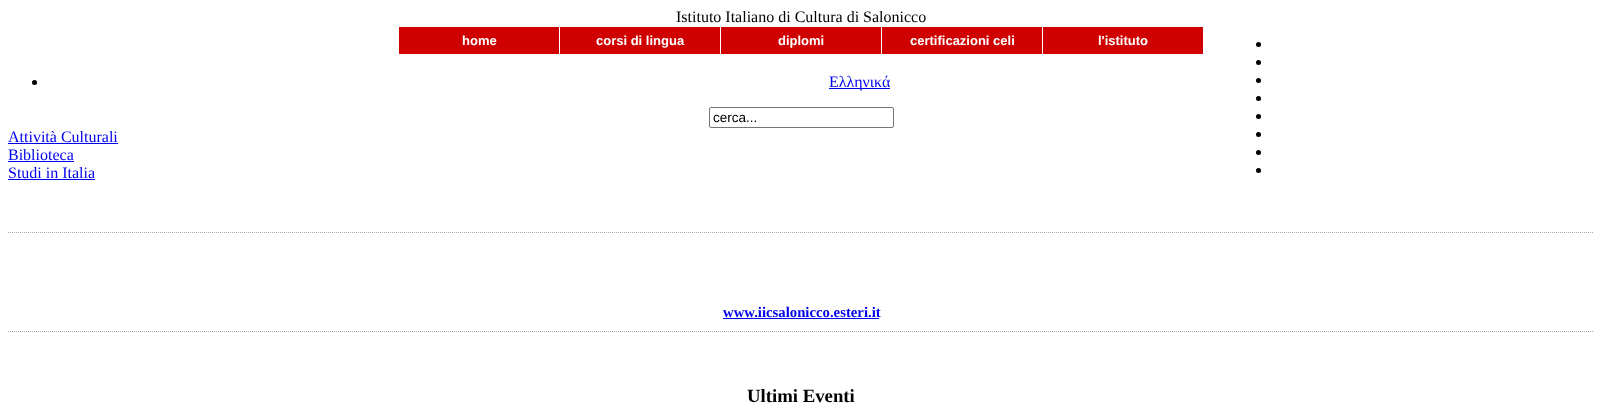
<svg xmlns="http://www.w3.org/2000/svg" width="1602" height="410">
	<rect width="100%" height="100%" fill="#FFFFFF" />
	<text x="676" y="22" font-family="Liberation Serif" font-size="16" fill="#000000">Istituto Italiano di Cultura di Salonicco</text>
	<circle cx="1258.5" cy="44.5" r="2.5" fill="#000000" />
	<circle cx="1258.5" cy="62.5" r="2.5" fill="#000000" />
	<circle cx="1258.5" cy="80.5" r="2.5" fill="#000000" />
	<circle cx="1258.5" cy="98.5" r="2.5" fill="#000000" />
	<circle cx="1258.5" cy="116.5" r="2.5" fill="#000000" />
	<circle cx="1258.5" cy="134.5" r="2.5" fill="#000000" />
	<circle cx="1258.5" cy="152.5" r="2.5" fill="#000000" />
	<circle cx="1258.5" cy="170.5" r="2.5" fill="#000000" />
	<rect x="399" y="27" width="160" height="27" fill="#D00001" />
	<text x="462" y="45" font-family="Liberation Sans" font-size="13" font-weight="700" fill="#FFFFFF">home</text>
	<rect x="560" y="27" width="160" height="27" fill="#D00001" />
	<text x="596" y="45" font-family="Liberation Sans" font-size="13" font-weight="700" fill="#FFFFFF">corsi di lingua</text>
	<rect x="721" y="27" width="160" height="27" fill="#D00001" />
	<text x="778" y="45" font-family="Liberation Sans" font-size="13" font-weight="700" fill="#FFFFFF">diplomi</text>
	<rect x="882" y="27" width="160" height="27" fill="#D00001" />
	<text x="910" y="45" font-family="Liberation Sans" font-size="13" font-weight="700" fill="#FFFFFF">certificazioni celi</text>
	<rect x="1043" y="27" width="160" height="27" fill="#D00001" />
	<text x="1098" y="45" font-family="Liberation Sans" font-size="13" font-weight="700" fill="#FFFFFF">l'istituto</text>
	<circle cx="34.5" cy="82.5" r="2.5" fill="#000000" />
	<rect x="829" y="88" width="61" height="1" fill="#0000EE" />
	<text x="829" y="87" font-family="Liberation Serif" font-size="16" fill="#0000EE">Ελληνικά</text>
	<rect x="709.5" y="107.5" width="184" height="20" rx="1.5" fill="none" stroke="#767676" />
	<text x="713" y="122" font-family="Liberation Sans" font-size="13.5" fill="#000000">cerca...</text>
	<text x="8" y="142" font-family="Liberation Serif" font-size="16" fill="#0000EE">Attività Culturali</text>
	<rect x="8" y="143" width="110" height="1" fill="#0000EE" />
	<text x="8" y="160" font-family="Liberation Serif" font-size="16" fill="#0000EE">Biblioteca</text>
	<rect x="8" y="161" width="66" height="1" fill="#0000EE" />
	<text x="8" y="178" font-family="Liberation Serif" font-size="16" fill="#0000EE">Studi in Italia</text>
	<rect x="8" y="179" width="87" height="1" fill="#0000EE" />
	<path d="M8 232.5H1594" fill="none" stroke="#AAAAAA" stroke-dasharray="1 1" />
	<path d="M8 331.5H1594" fill="none" stroke="#AAAAAA" stroke-dasharray="1 1" />
	<text x="723" y="317" font-family="Liberation Serif" font-size="14.75" font-weight="700" fill="#0000EE">www.iicsalonicco.esteri.it</text>
	<rect x="723" y="318" width="156" height="1" fill="#0000EE" />
	<text x="747" y="402" font-family="Liberation Serif" font-size="18.75" font-weight="700" fill="#000000">Ultimi Eventi</text>
</svg>
